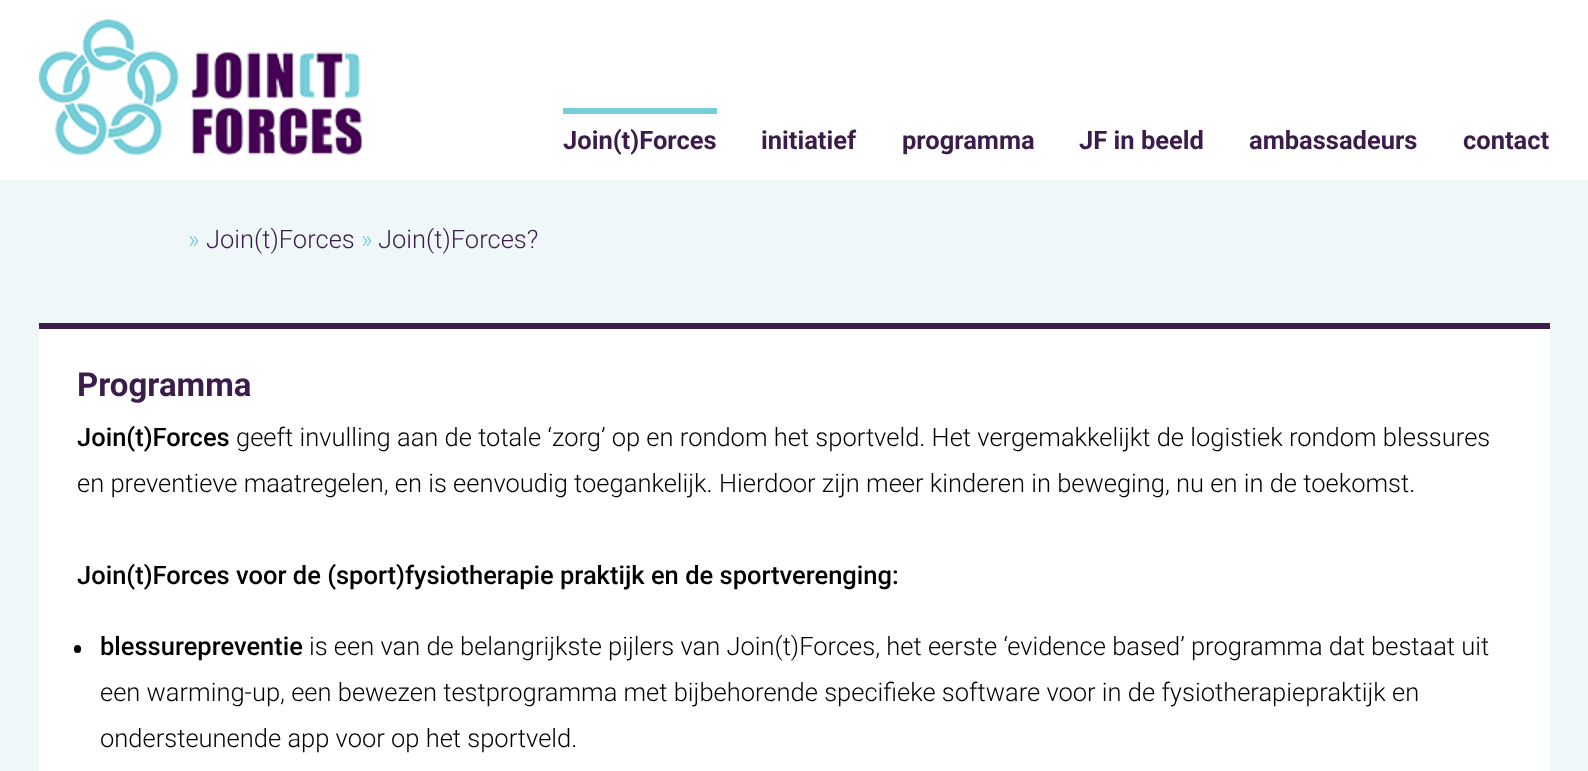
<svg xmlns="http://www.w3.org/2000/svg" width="1588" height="771">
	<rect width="100%" height="100%" fill="#EFF7F8" />
	<rect x="0" y="0" width="1588" height="180" fill="#FFFFFF" />
	<image x="39" y="19" width="323" height="136" href="assets/img1.png" />
	<rect x="563" y="108" width="154" height="6" fill="#77CED9" />
	<g font-family="Roboto" font-size="25.5" font-weight="700" fill="#3B1C4B">
		<text x="563" y="149">Join(t)Forces</text>
		<text x="761" y="149">initiatief</text>
		<text x="902" y="149">programma</text>
		<text x="1079" y="149">JF in beeld</text>
		<text x="1249" y="149">ambassadeurs</text>
		<text x="1463" y="149">contact</text>
	</g>
	<text x="188" y="248" font-family="Roboto" font-size="25.5" font-weight="300" fill="#77CED9">»</text>
	<text x="206" y="248" font-family="Roboto" font-size="25.5" font-weight="300" fill="#3B1C4B">Join(t)Forces</text>
	<text x="361" y="248" font-family="Roboto" font-size="25.5" font-weight="300" fill="#77CED9">»</text>
	<text x="378" y="248" font-family="Roboto" font-size="25.5" font-weight="300" fill="#3B1C4B">Join(t)Forces?</text>
	<rect x="39" y="329" width="1511" height="442" fill="#FFFFFF" />
	<rect x="39" y="323" width="1511" height="6" fill="#3B1C4B" />
	<text x="77" y="396" font-family="Roboto" font-size="33" font-weight="700" fill="#3B1C4B">Programma</text>
	<text x="77" y="446" font-family="Roboto" font-size="25.5" font-weight="500" fill="#000000">Join(t)Forces</text>
	<g font-family="Roboto" font-size="25.5" font-weight="300" fill="#000000">
		<text x="236" y="446">geeft invulling aan de totale ‘zorg’ op en rondom het sportveld. Het vergemakkelijkt de logistiek rondom blessures</text>
		<text x="77" y="492">en preventieve maatregelen, en is eenvoudig toegankelijk. Hierdoor zijn meer kinderen in beweging, nu en in de toekomst.</text>
	</g>
	<text x="77" y="584" font-family="Roboto" font-size="25.5" font-weight="500" fill="#000000">Join(t)Forces voor de (sport)fysiotherapie praktijk en de sportverenging:</text>
	<rect x="74" y="645" width="7" height="8" rx="3.5" fill="#000000" />
	<text x="100" y="655" font-family="Roboto" font-size="25.5" font-weight="500" fill="#000000">blessurepreventie</text>
	<g font-family="Roboto" font-size="25.5" font-weight="300" fill="#000000">
		<text x="309" y="655">is een van de belangrijkste pijlers van Join(t)Forces, het eerste ‘evidence based’ programma dat bestaat uit</text>
		<text x="100" y="701">een warming-up, een bewezen testprogramma met bijbehorende specifieke software voor in de fysiotherapiepraktijk en</text>
		<text x="100" y="747">ondersteunende app voor op het sportveld.</text>
	</g>
</svg>
